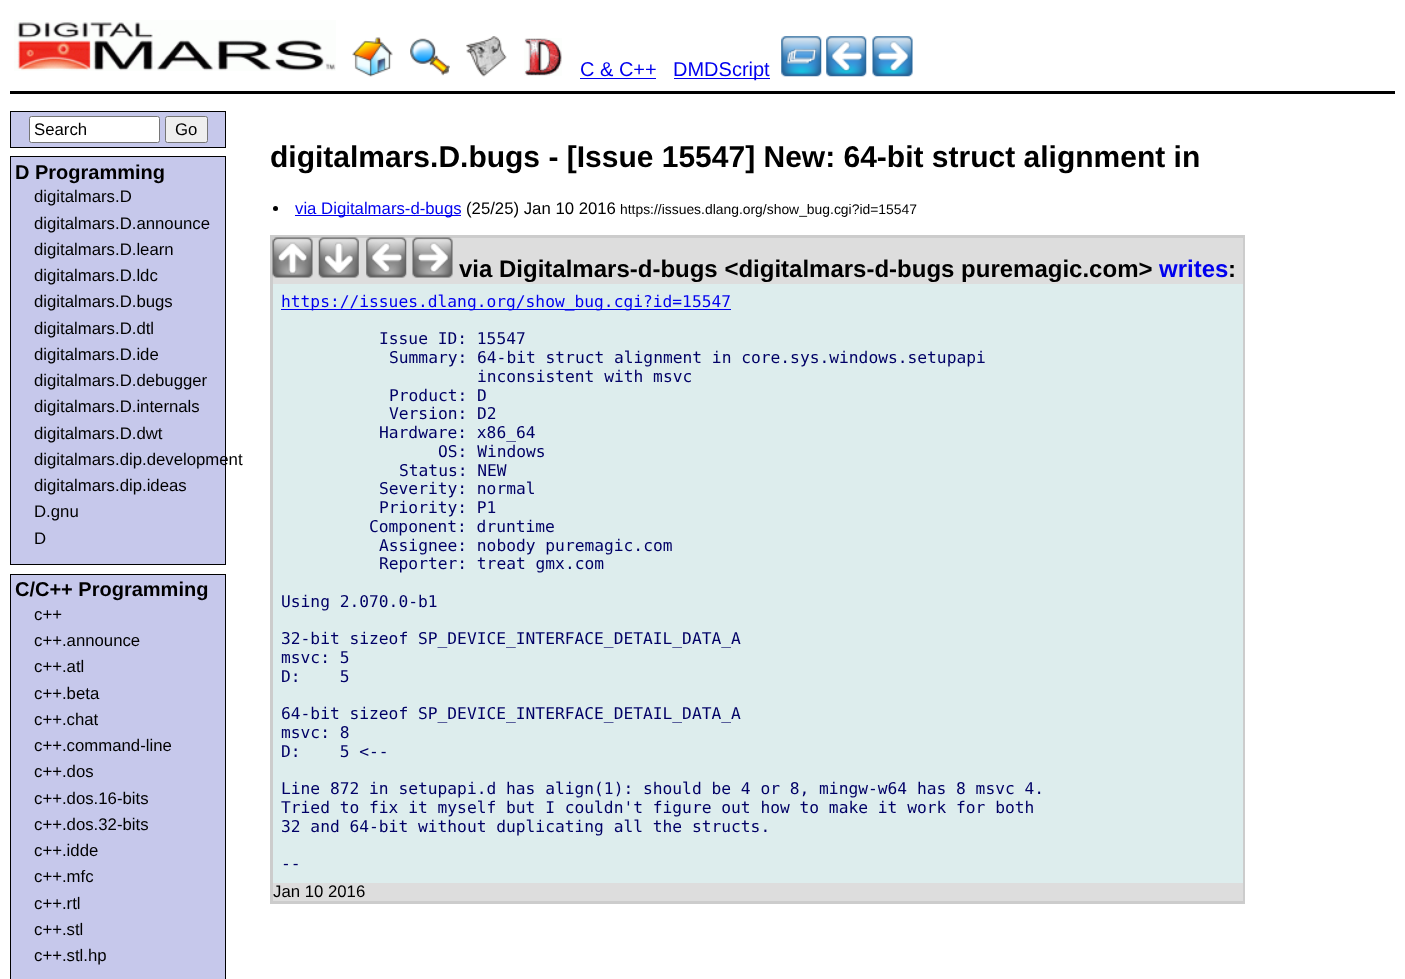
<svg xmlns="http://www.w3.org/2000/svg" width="1405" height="979">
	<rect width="100%" height="100%" fill="#FFFFFF" />
	<rect x="10" y="91" width="1385" height="3" fill="#000000" />
	<image x="14" y="20" width="322" height="51" href="assets/img1.png" />
	<image x="352" y="37" width="41" height="40" href="assets/img2.png" />
	<image x="410" y="38" width="40" height="38" href="assets/img3.png" />
	<image x="466" y="36" width="41" height="41" href="assets/img4.png" />
	<image x="524" y="38" width="38" height="38" href="assets/img5.png" />
	<text x="580" y="76" font-family="Liberation Sans" font-size="20" fill="#0000EE">C &amp; C++</text>
	<rect x="580" y="78" width="76" height="1" fill="#0000EE" />
	<rect x="674" y="78" width="96" height="1" fill="#0000EE" />
	<text x="673" y="76" font-family="Liberation Sans" font-size="20" fill="#0000EE">DMDScript</text>
	<image x="781" y="36" width="41" height="41" href="assets/img6.png" />
	<image x="826" y="36" width="41" height="41" href="assets/img7.png" />
	<image x="872" y="36" width="41" height="41" href="assets/img8.png" />
	<rect x="10.5" y="111.5" width="215" height="36" fill="#C6C8EB" stroke="#000000" />
	<rect x="29.5" y="116.5" width="130" height="26" rx="2" fill="#FFFFFF" stroke="#767676" />
	<text x="34" y="135" font-family="Liberation Sans" font-size="16.75" fill="#000000">Search</text>
	<rect x="165.5" y="116.5" width="42" height="26" rx="2" fill="#EFEFEF" stroke="#767676" />
	<text x="175" y="135" font-family="Liberation Sans" font-size="16.75" fill="#000000">Go</text>
	<rect x="10.5" y="156.5" width="215" height="408" fill="#C6C8EB" stroke="#000000" />
	<text x="15" y="179" font-family="Liberation Sans" font-size="20" font-weight="700" fill="#000000">D Programming</text>
	<g font-family="Liberation Sans" font-size="16.75" fill="#000000">
		<text x="34" y="202">digitalmars.D</text>
		<text x="34" y="229">digitalmars.D.announce</text>
		<text x="34" y="255">digitalmars.D.learn</text>
		<text x="34" y="281">digitalmars.D.ldc</text>
		<text x="34" y="307">digitalmars.D.bugs</text>
		<text x="34" y="334">digitalmars.D.dtl</text>
		<text x="34" y="360">digitalmars.D.ide</text>
		<text x="34" y="386">digitalmars.D.debugger</text>
		<text x="34" y="412">digitalmars.D.internals</text>
		<text x="34" y="439">digitalmars.D.dwt</text>
		<text x="34" y="465">digitalmars.dip.development</text>
		<text x="34" y="491">digitalmars.dip.ideas</text>
		<text x="34" y="517">D.gnu</text>
		<text x="34" y="544">D</text>
	</g>
	<rect x="10.5" y="574.5" width="215" height="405" fill="#C6C8EB" stroke="#000000" />
	<text x="15" y="596" font-family="Liberation Sans" font-size="20" font-weight="700" fill="#000000">C/C++ Programming</text>
	<g font-family="Liberation Sans" font-size="16.75" fill="#000000">
		<text x="34" y="620">c++</text>
		<text x="34" y="646">c++.announce</text>
		<text x="34" y="672">c++.atl</text>
		<text x="34" y="699">c++.beta</text>
		<text x="34" y="725">c++.chat</text>
		<text x="34" y="751">c++.command-line</text>
		<text x="34" y="777">c++.dos</text>
		<text x="34" y="804">c++.dos.16-bits</text>
		<text x="34" y="830">c++.dos.32-bits</text>
		<text x="34" y="856">c++.idde</text>
		<text x="34" y="882">c++.mfc</text>
		<text x="34" y="909">c++.rtl</text>
		<text x="34" y="935">c++.stl</text>
		<text x="34" y="961">c++.stl.hp</text>
	</g>
	<text x="270" y="167" font-family="Liberation Sans" font-size="30" font-weight="700" fill="#000000">digitalmars.D.bugs - [Issue 15547] New: 64-bit struct alignment in</text>
	<circle cx="275.5" cy="208.5" r="2.5" fill="#000000" />
	<rect x="295" y="215" width="166" height="1" fill="#0000EE" />
	<text x="295" y="214" font-family="Liberation Sans" font-size="16.75" fill="#0000EE">via Digitalmars-d-bugs</text>
	<text x="466" y="214" font-family="Liberation Sans" font-size="16.75" fill="#000000">(25/25) Jan 10 2016</text>
	<text x="620" y="214" font-family="Liberation Sans" font-size="13.9" fill="#000000">https://issues.dlang.org/show_bug.cgi?id=15547</text>
	<rect x="271.5" y="236.5" width="972" height="666" fill="none" stroke="#CCCCCC" stroke-width="3" />
	<rect x="273" y="238" width="970" height="46" fill="#DDDDDD" />
	<image x="272" y="237" width="41" height="41" href="assets/img9.png" />
	<image x="318" y="237" width="41" height="41" href="assets/img10.png" />
	<image x="366" y="237" width="41" height="41" href="assets/img11.png" />
	<image x="412" y="237" width="41" height="41" href="assets/img12.png" />
	<text x="459" y="277" font-family="Liberation Sans" font-size="24" font-weight="700" fill="#000000">via Digitalmars-d-bugs &lt;digitalmars-d-bugs puremagic.com&gt;</text>
	<text x="1159" y="277" font-family="Liberation Sans" font-size="24" font-weight="700" fill="#0000EE">writes</text>
	<text x="1228" y="277" font-family="Liberation Sans" font-size="24" font-weight="700" fill="#000000">:</text>
	<rect x="273" y="284" width="970" height="599" fill="#DDEDED" />
	<rect x="281" y="309" width="450" height="1" fill="#0000EE" />
	<text x="281" y="307" font-family="DejaVu Sans Mono" font-size="16.25" fill="#0000EE">https://issues.dlang.org/show_bug.cgi?id=15547</text>
	<g font-family="DejaVu Sans Mono" font-size="16.25" fill="#000066">
		<text x="379" y="344">Issue ID: 15547</text>
		<text x="389" y="363">Summary: 64-bit struct alignment in core.sys.windows.setupapi</text>
		<text x="477" y="382">inconsistent with msvc</text>
		<text x="389" y="401">Product: D</text>
		<text x="389" y="419">Version: D2</text>
		<text x="379" y="438">Hardware: x86_64</text>
		<text x="438" y="457">OS: Windows</text>
		<text x="399" y="476">Status: NEW</text>
		<text x="379" y="494">Severity: normal</text>
		<text x="379" y="513">Priority: P1</text>
		<text x="369" y="532">Component: druntime</text>
		<text x="379" y="551">Assignee: nobody puremagic.com</text>
		<text x="379" y="569">Reporter: treat gmx.com</text>
		<text x="281" y="607">Using 2.070.0-b1</text>
		<text x="281" y="644">32-bit sizeof SP_DEVICE_INTERFACE_DETAIL_DATA_A</text>
		<text x="281" y="663">msvc: 5</text>
		<text x="281" y="682" xml:space="preserve">D:    5</text>
		<text x="281" y="719">64-bit sizeof SP_DEVICE_INTERFACE_DETAIL_DATA_A</text>
		<text x="281" y="738">msvc: 8</text>
		<text x="281" y="757" xml:space="preserve">D:    5 &lt;--</text>
		<text x="281" y="794">Line 872 in setupapi.d has align(1): should be 4 or 8, mingw-w64 has 8 msvc 4.</text>
		<text x="281" y="813">Tried to fix it myself but I couldn't figure out how to make it work for both</text>
		<text x="281" y="832">32 and 64-bit without duplicating all the structs.</text>
		<text x="281" y="869">--</text>
	</g>
	<rect x="273" y="883" width="970" height="18" fill="#DDDDDD" />
	<text x="273" y="897" font-family="Liberation Sans" font-size="16.75" fill="#000000">Jan 10 2016</text>
</svg>
